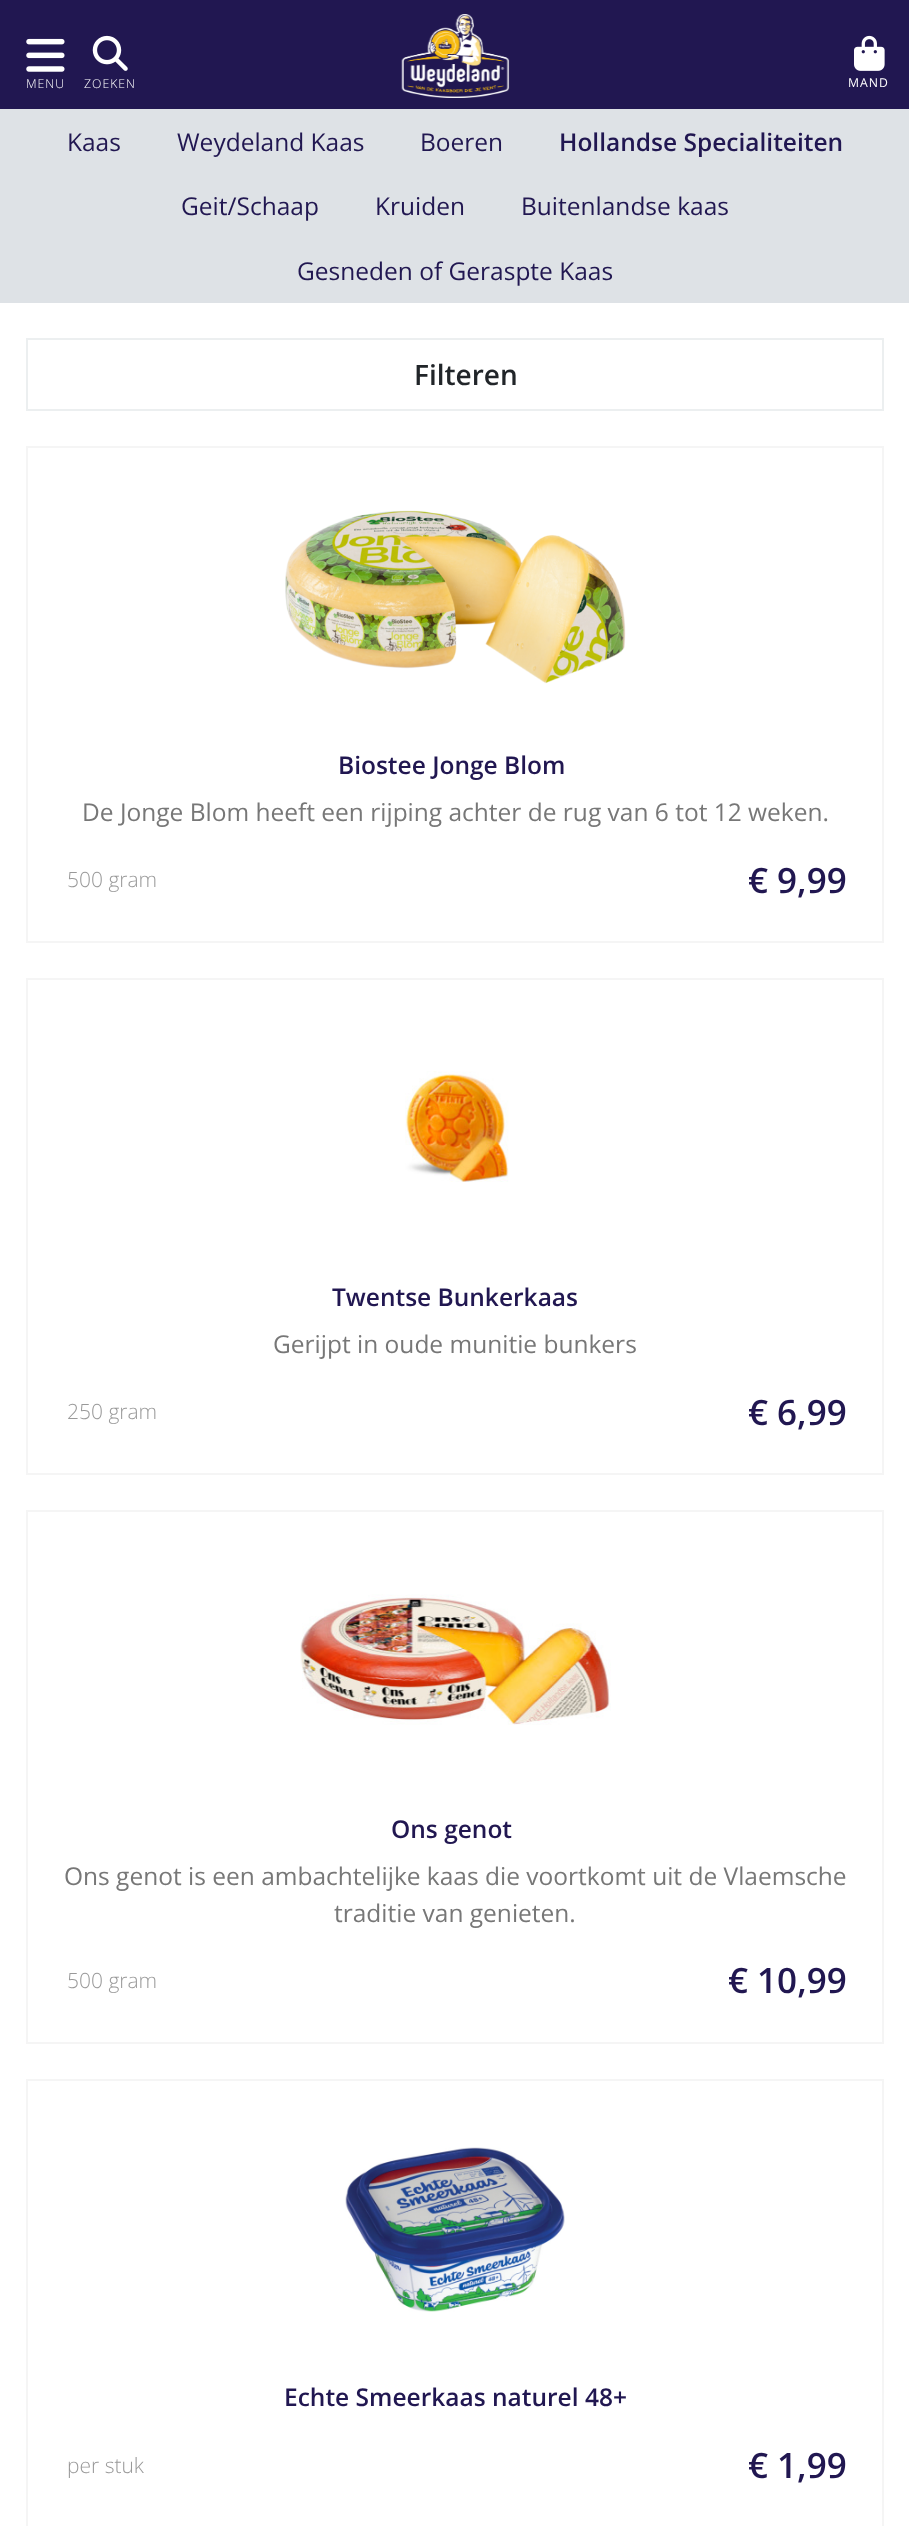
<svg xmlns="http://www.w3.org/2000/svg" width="909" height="2526">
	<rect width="100%" height="100%" fill="#FFFFFF" />
	<rect x="0" y="0" width="909" height="109" fill="#211751" />
	<image x="26" y="38" width="39" height="34" href="assets/img1.png" />
	<text x="26" y="88" font-family="Open Sans" font-size="12.25" font-weight="300" letter-spacing="1" fill="#FFFFFF">MENU</text>
	<image x="92" y="35" width="36" height="36" href="assets/img2.png" />
	<text x="84" y="88" font-family="Open Sans" font-size="12.25" font-weight="300" letter-spacing="1" fill="#FFFFFF">ZOEKEN</text>
	<image x="401" y="14" width="109" height="84" href="assets/img3.png" />
	<image x="854" y="35" width="31" height="36" href="assets/img4.png" />
	<text x="848" y="87" font-family="Open Sans" font-size="12.25" letter-spacing="1" fill="#FFFFFF">MAND</text>
	<rect x="0" y="109" width="909" height="194" fill="#DEE2E6" />
	<g font-family="Open Sans" font-size="24.5" fill="#211751">
		<text x="67" y="151">Kaas</text>
		<text x="177" y="151">Weydeland Kaas</text>
		<text x="420" y="151">Boeren</text>
	</g>
	<text x="559" y="151" font-family="Open Sans" font-size="24.5" font-weight="600" fill="#211751">Hollandse Specialiteiten</text>
	<g font-family="Open Sans" font-size="24.5" fill="#211751">
		<text x="181" y="215">Geit/Schaap</text>
		<text x="375" y="215">Kruiden</text>
		<text x="521" y="215">Buitenlandse kaas</text>
		<text x="297" y="280">Gesneden of Geraspte Kaas</text>
	</g>
	<rect x="27" y="339" width="856" height="71" fill="none" stroke="#ECEFF0" stroke-width="2" />
	<text x="414" y="385" font-family="Open Sans" font-size="28" font-weight="600" fill="#212529">Filteren</text>
	<rect x="27" y="447" width="856" height="495" fill="none" stroke="#F5F5F5" stroke-width="2" />
	<image x="285" y="510" width="341" height="174" href="assets/img5.png" />
	<text x="338" y="774" font-family="Open Sans" font-size="24.5" font-weight="600" fill="#211751">Biostee Jonge Blom</text>
	<text x="82" y="821" font-family="Open Sans" font-size="24.5" fill="#777777">De Jonge Blom heeft een rijping achter de rug van 6 tot 12 weken.</text>
	<text x="67" y="887" font-family="Open Sans" font-size="21" font-weight="300" fill="#999999">500 gram</text>
	<text x="748" y="893" font-family="Open Sans" font-size="35" font-weight="600" fill="#211751">€ 9,99</text>
	<rect x="27" y="979" width="856" height="495" fill="none" stroke="#F5F5F5" stroke-width="2" />
	<image x="405" y="1071" width="104" height="111" href="assets/img6.png" />
	<text x="332" y="1306" font-family="Open Sans" font-size="24.5" font-weight="600" fill="#211751">Twentse Bunkerkaas</text>
	<text x="273" y="1353" font-family="Open Sans" font-size="24.5" fill="#777777">Gerijpt in oude munitie bunkers</text>
	<text x="67" y="1419" font-family="Open Sans" font-size="21" font-weight="300" fill="#999999">250 gram</text>
	<text x="748" y="1425" font-family="Open Sans" font-size="35" font-weight="600" fill="#211751">€ 6,99</text>
	<rect x="27" y="1511" width="856" height="532" fill="none" stroke="#F5F5F5" stroke-width="2" />
	<image x="300" y="1594" width="311" height="131" href="assets/img7.png" />
	<text x="391" y="1838" font-family="Open Sans" font-size="24.5" font-weight="600" fill="#211751">Ons genot</text>
	<g font-family="Open Sans" font-size="24.5" fill="#777777">
		<text x="64" y="1885">Ons genot is een ambachtelijke kaas die voortkomt uit de Vlaemsche</text>
		<text x="334" y="1922">traditie van genieten.</text>
	</g>
	<text x="67" y="1988" font-family="Open Sans" font-size="21" font-weight="300" fill="#999999">500 gram</text>
	<text x="728" y="1993" font-family="Open Sans" font-size="35" font-weight="600" fill="#211751">€ 10,99</text>
	<rect x="27" y="2080" width="856" height="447" fill="none" stroke="#F5F5F5" stroke-width="2" />
	<image x="345" y="2147" width="220" height="165" href="assets/img8.png" />
	<text x="284" y="2406" font-family="Open Sans" font-size="24.5" font-weight="600" fill="#211751">Echte Smeerkaas naturel 48+</text>
	<text x="67" y="2473" font-family="Open Sans" font-size="21" font-weight="300" fill="#999999">per stuk</text>
	<text x="748" y="2478" font-family="Open Sans" font-size="35" font-weight="600" fill="#211751">€ 1,99</text>
</svg>
